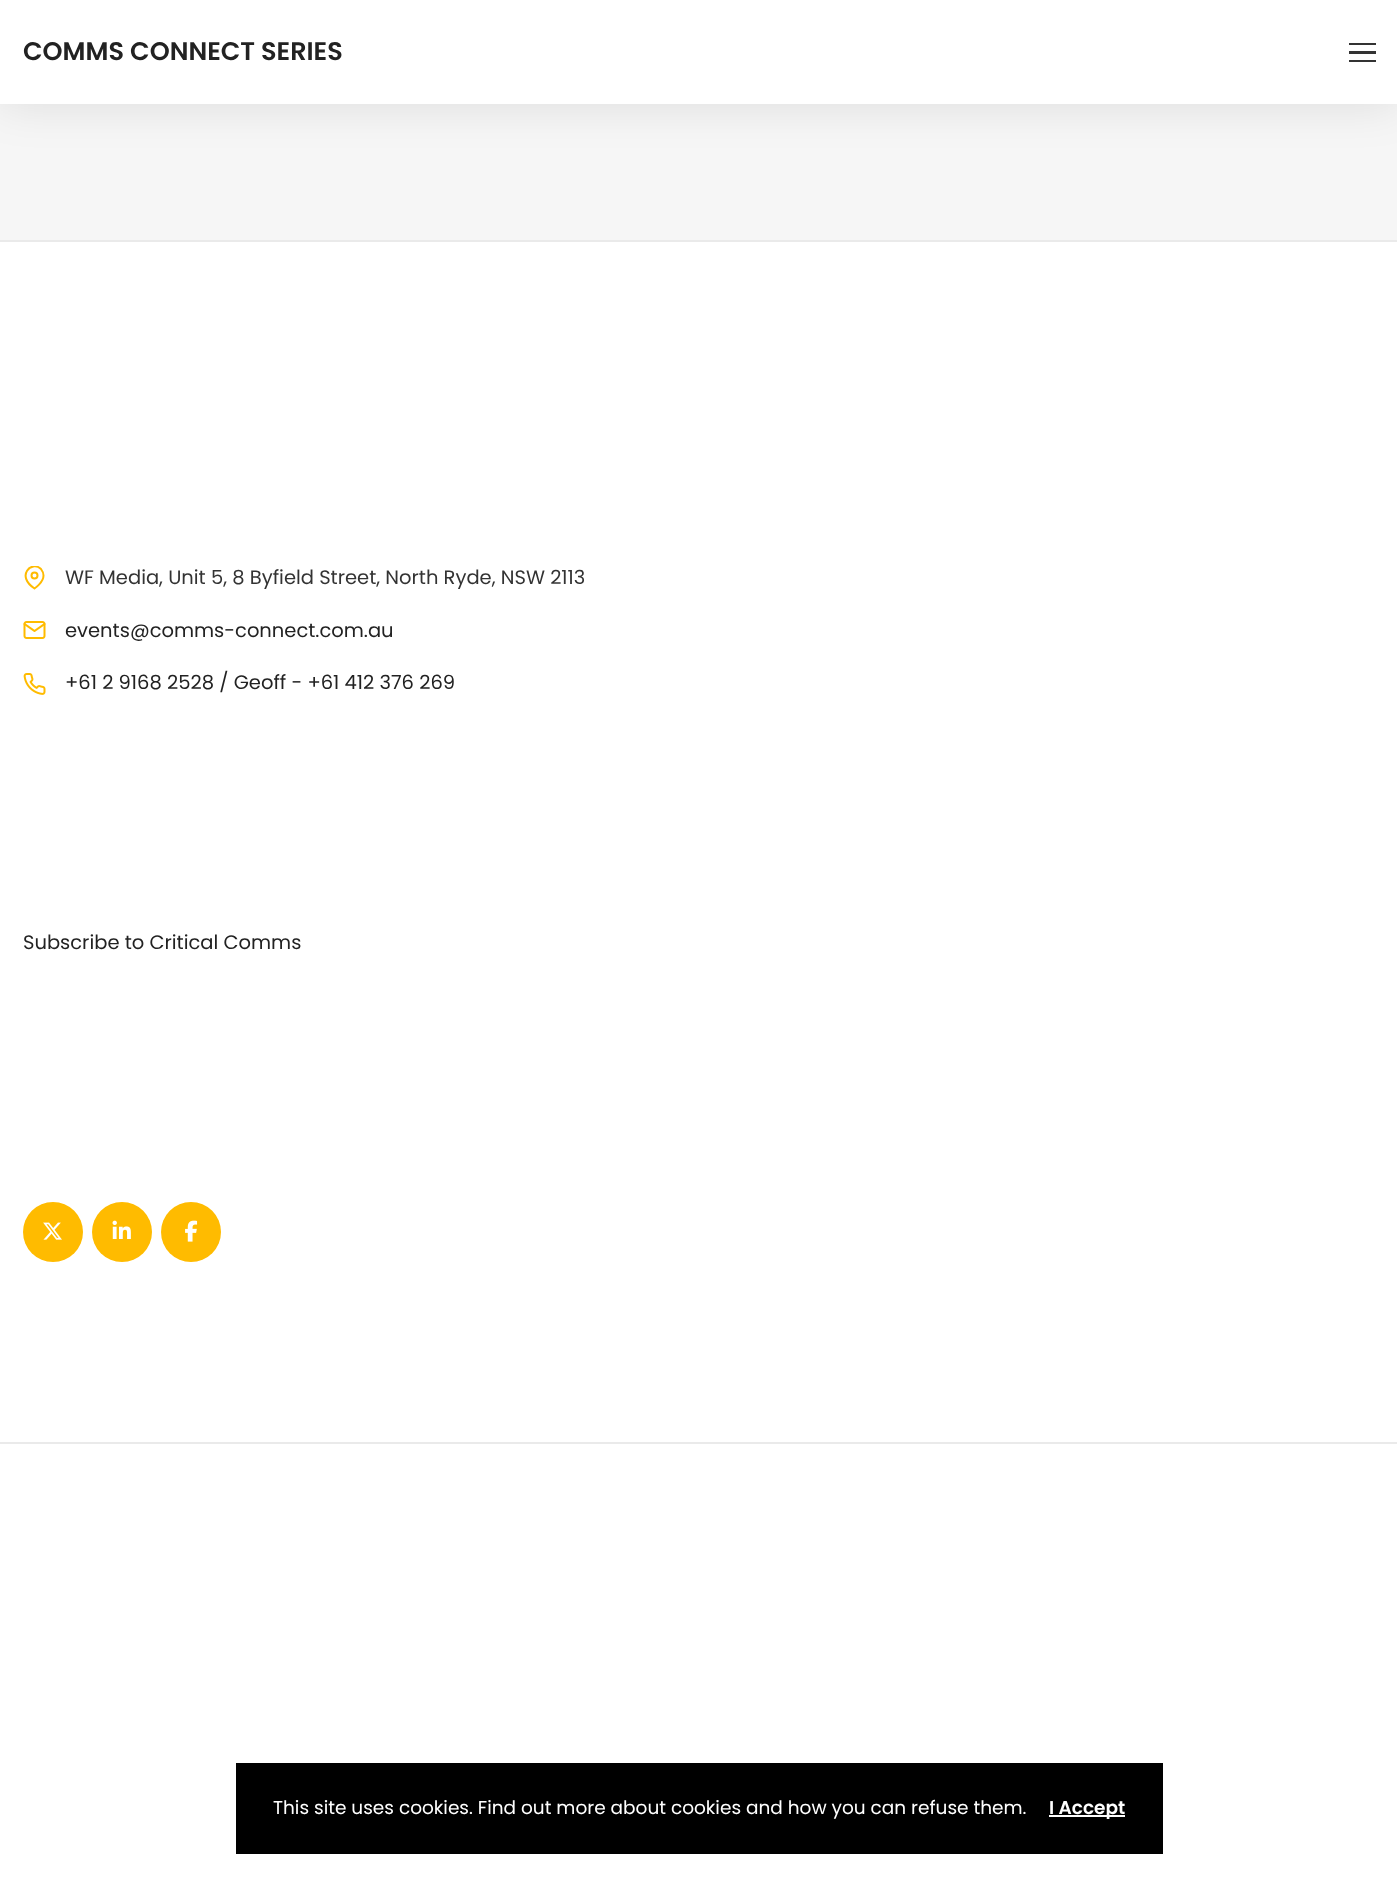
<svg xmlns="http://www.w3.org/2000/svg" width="1397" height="1899">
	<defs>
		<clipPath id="clip1"><rect x="23" y="566" width="24" height="24" /></clipPath>
	</defs>
	<rect width="100%" height="100%" fill="#FFFFFF" />
	<rect x="0" y="104" width="1397" height="136" fill="#F6F6F6" />
	<rect x="0" y="2" width="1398" height="103" fill="#000000" fill-opacity="0.1" filter="blur(22.5px)" />
	<rect x="0" y="0" width="1397" height="104" fill="#FFFFFF" />
	<text x="23" y="60" font-family="Poppins" font-size="25.5" font-weight="600" fill="#222222">COMMS CONNECT SERIES</text>
	<rect x="1349" y="43" width="27" height="2" fill="#333333" />
	<rect x="1349" y="51" width="27" height="3" fill="#333333" />
	<rect x="1349" y="60" width="27" height="2" fill="#333333" />
	<rect x="0" y="240" width="1397" height="2" fill="#EAEAEA" />
	<g clip-path="url(#clip1)">
		<path d="M43.5 575.5C43.5 582.5 34.5 588.5 34.5 588.5C15.5 576 31.5 560 41 569C42.5 571 43.5 573 43.5 575.5Z" fill="none" stroke="#FFBB00" stroke-width="2" stroke-linecap="round" stroke-linejoin="round" />
	</g>
	<circle cx="34.5" cy="575.5" r="3" fill="none" stroke="#FFBB00" stroke-width="2" />
	<text x="65" y="584" font-family="Poppins" font-size="19.5" fill="#333333">WF Media, Unit 5, 8 Byfield Street, North Ryde, NSW 2113</text>
	<image x="23" y="621" width="23" height="18" href="assets/img1.png" />
	<text x="65" y="637" font-family="Poppins" font-size="19.5" fill="#222222">events@comms-connect.com.au</text>
	<image x="23" y="673" width="23" height="22" href="assets/img2.png" />
	<g font-family="Poppins" font-size="19.5" fill="#222222">
		<text x="65" y="689">+61 2 9168 2528 / Geoff - +61 412 376 269</text>
		<text x="23" y="949">Subscribe to Critical Comms</text>
	</g>
	<circle cx="53" cy="1232" r="30" fill="#FFBB00" />
	<image x="43" y="1222" width="19" height="18" href="assets/img3.png" />
	<circle cx="122" cy="1232" r="30" fill="#FFBB00" />
	<image x="112" y="1220" width="19" height="19" href="assets/img4.png" />
	<circle cx="191" cy="1232" r="30" fill="#FFBB00" />
	<image x="185" y="1220" width="13" height="22" href="assets/img5.png" />
	<rect x="0" y="1442" width="1397" height="2" fill="#EAEAEA" />
	<rect x="236" y="1763" width="927" height="91" fill="#000000" />
	<text x="273" y="1814" font-family="Poppins" font-size="18.5" fill="#FFFFFF">This site uses cookies. Find out more about cookies and how you can refuse them.</text>
	<rect x="1049" y="1815" width="76" height="2" fill="#FFFFFF" />
	<text x="1049" y="1814" font-family="Poppins" font-size="18.5" font-weight="600" fill="#FFFFFF">I Accept</text>
</svg>
